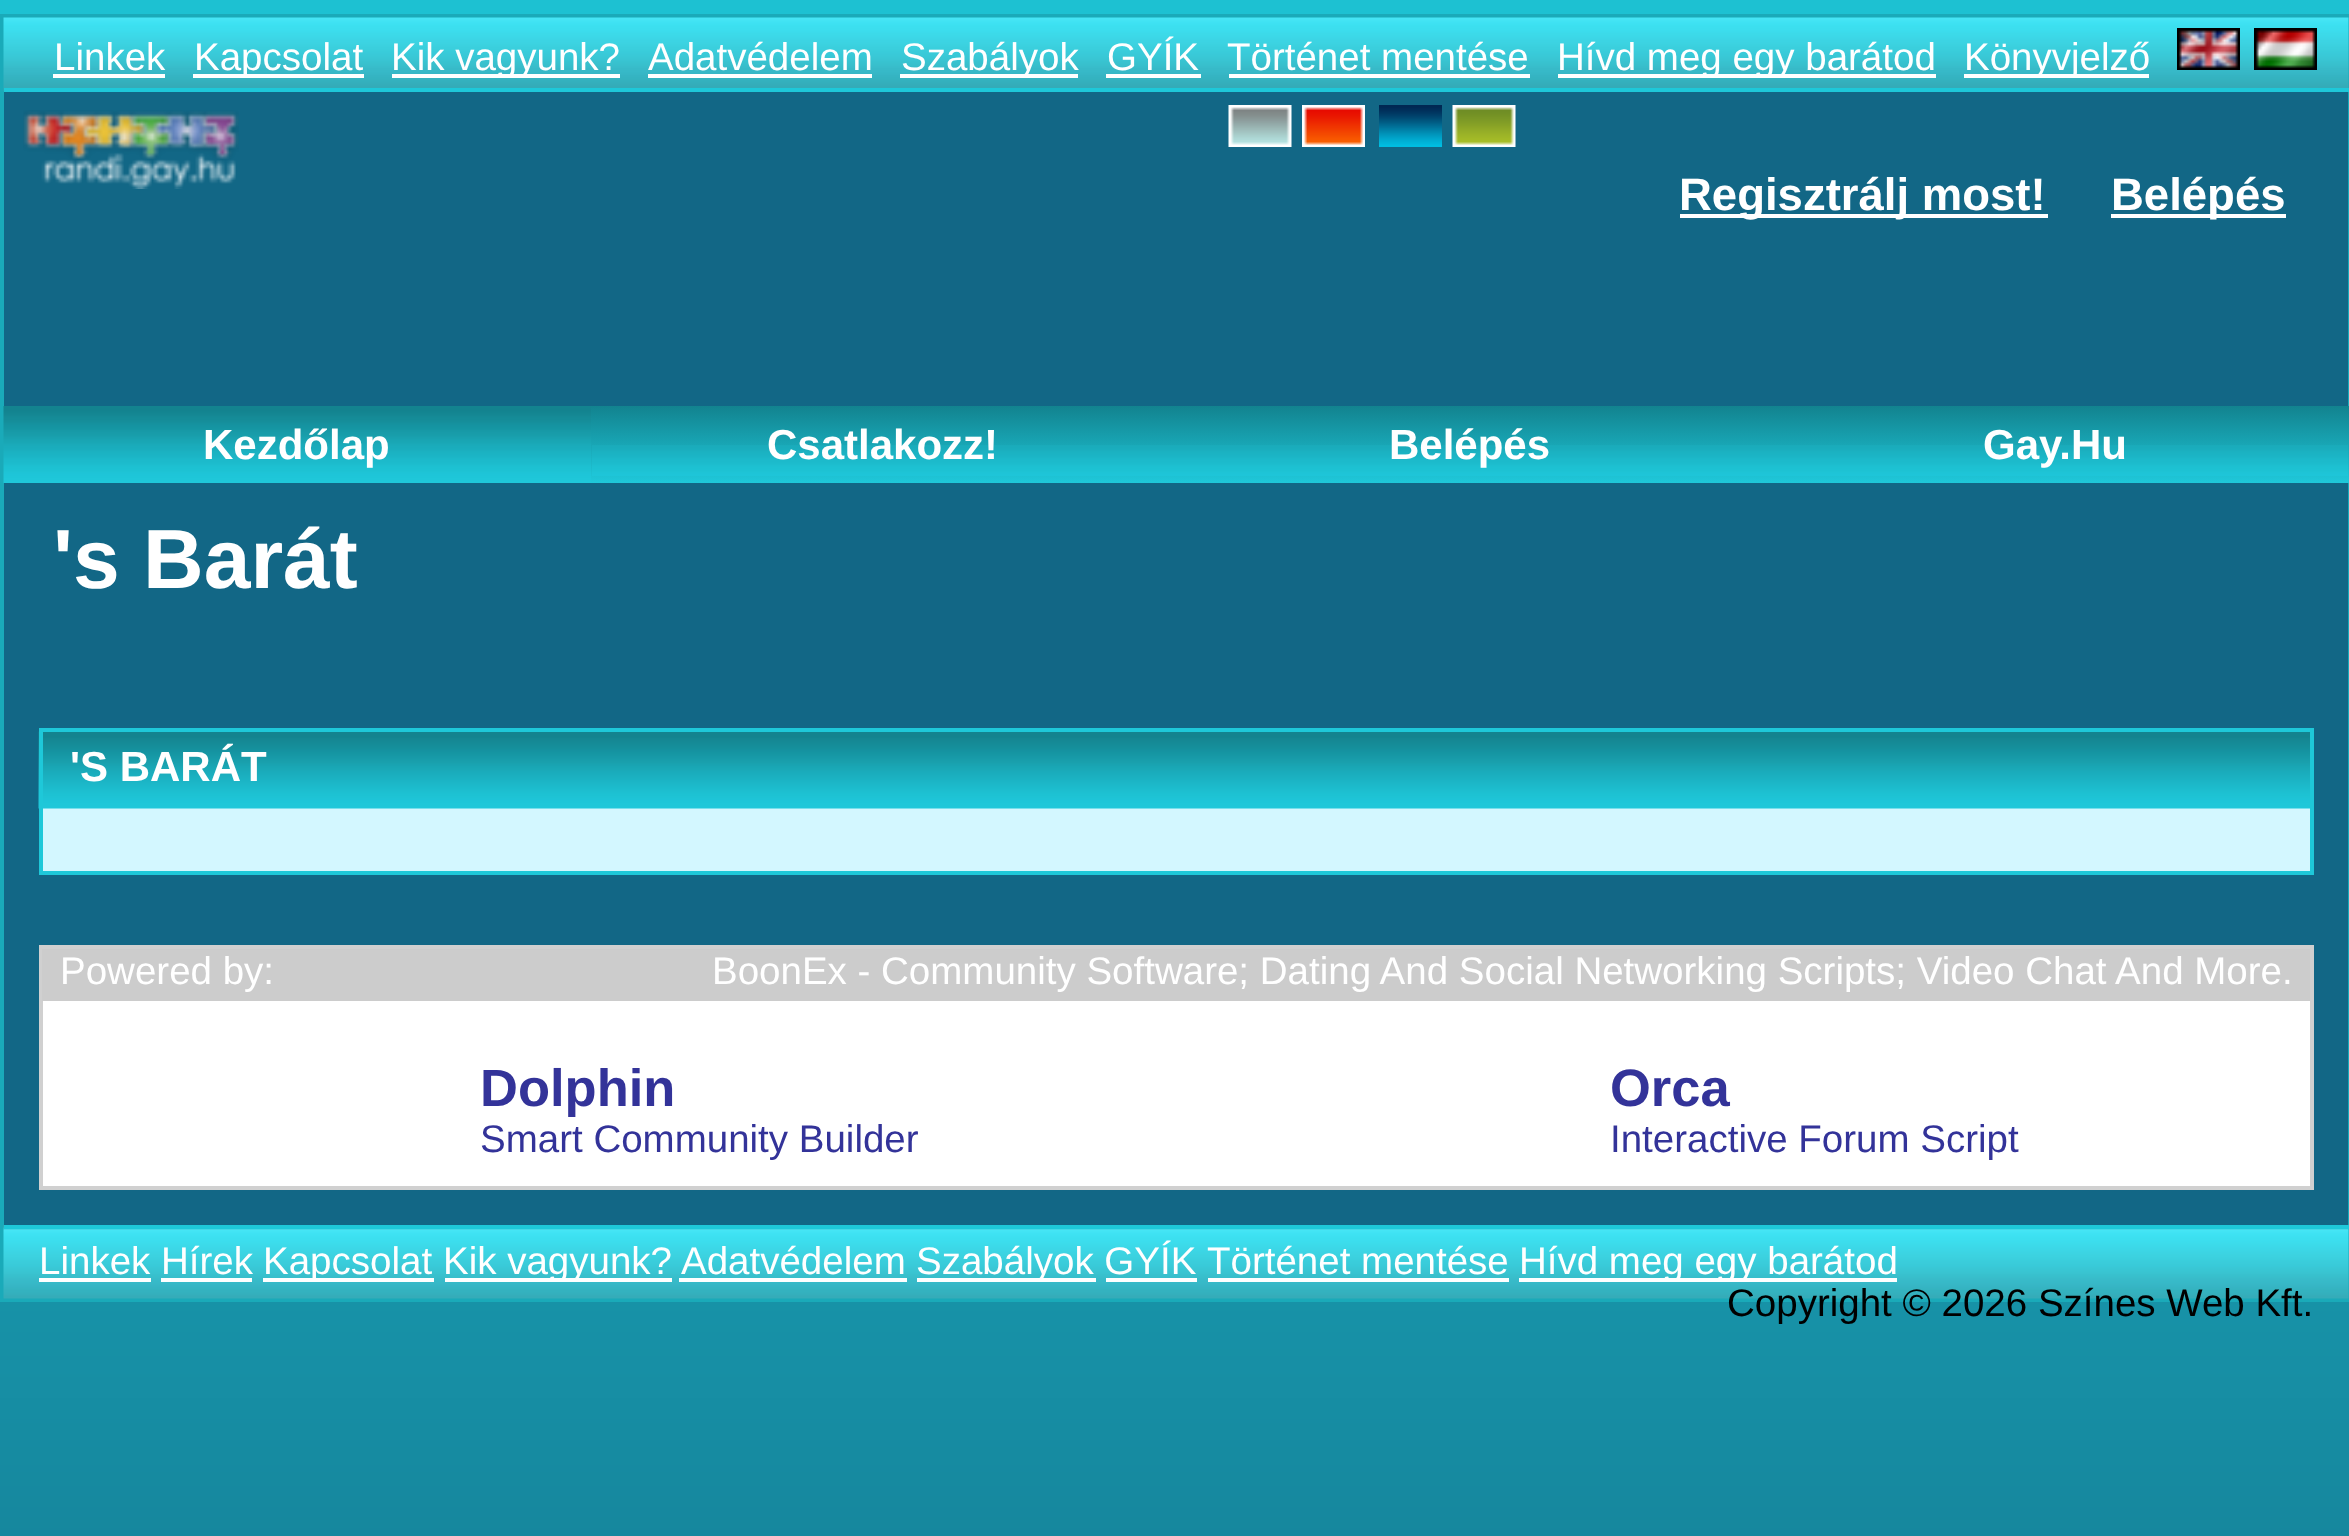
<svg xmlns="http://www.w3.org/2000/svg" width="2349" height="1536">
	<defs>
		<linearGradient id="g1" gradientUnits="userSpaceOnUse" x1="1176" y1="406" x2="1176" y2="483"><stop offset="0" stop-color="#12838F" /><stop offset="1" stop-color="#1FC8DA" /></linearGradient>
	</defs>
	<rect width="100%" height="100%" fill="#FFFFFF" />
	<image x="0" y="0" width="2349" height="1536" href="assets/img1.png" />
	<rect x="4" y="92" width="2344" height="1133" fill="#126786" />
	<rect x="2" y="16" width="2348" height="1284" fill="none" stroke="#1AAAB9" stroke-width="4" />
	<image x="3" y="17" width="2346" height="74" href="assets/img2.png" />
	<rect x="4" y="88" width="2345" height="4" fill="#1EC8D9" />
	<text x="54" y="70" font-family="Liberation Sans" font-size="38.5" fill="#FFFFFF">Linkek</text>
	<rect x="53" y="74" width="112" height="4" fill="#FFFFFF" />
	<rect x="193" y="74" width="171" height="4" fill="#FFFFFF" />
	<text x="194" y="70" font-family="Liberation Sans" font-size="38.5" fill="#FFFFFF">Kapcsolat</text>
	<rect x="392" y="74" width="228" height="4" fill="#FFFFFF" />
	<g font-family="Liberation Sans" font-size="38.5" fill="#FFFFFF">
		<text x="391" y="70">Kik vagyunk?</text>
		<text x="648" y="70">Adatvédelem</text>
	</g>
	<rect x="648" y="74" width="224" height="4" fill="#FFFFFF" />
	<rect x="900" y="74" width="178" height="4" fill="#FFFFFF" />
	<g font-family="Liberation Sans" font-size="38.5" fill="#FFFFFF">
		<text x="901" y="70">Szabályok</text>
		<text x="1107" y="70">GYÍK</text>
	</g>
	<rect x="1106" y="74" width="95" height="4" fill="#FFFFFF" />
	<text x="1227" y="70" font-family="Liberation Sans" font-size="38.5" fill="#FFFFFF">Történet mentése</text>
	<rect x="1229" y="74" width="301" height="4" fill="#FFFFFF" />
	<rect x="1558" y="74" width="378" height="4" fill="#FFFFFF" />
	<text x="1557" y="70" font-family="Liberation Sans" font-size="38.5" fill="#FFFFFF">Hívd meg egy barátod</text>
	<rect x="1964" y="74" width="185" height="4" fill="#FFFFFF" />
	<text x="1964" y="70" font-family="Liberation Sans" font-size="38.5" fill="#FFFFFF">Könyvjelző</text>
	<image x="2177" y="28" width="63" height="42" href="assets/img3.png" />
	<image x="2254" y="28" width="63" height="42" href="assets/img4.png" />
	<image x="23" y="110" width="216" height="79" href="assets/img5.png" />
	<image x="1228" y="105" width="64" height="42" href="assets/img6.png" />
	<image x="1302" y="105" width="63" height="42" href="assets/img7.png" />
	<image x="1379" y="105" width="63" height="42" href="assets/img8.png" />
	<image x="1452" y="105" width="64" height="42" href="assets/img9.png" />
	<rect x="1680" y="214" width="368" height="4" fill="#FFFFFF" />
	<text x="1679" y="210" font-family="Liberation Sans" font-size="45.5" font-weight="700" fill="#FFFFFF">Regisztrálj most!</text>
	<rect x="2111" y="214" width="175" height="4" fill="#FFFFFF" />
	<text x="2111" y="210" font-family="Liberation Sans" font-size="45.5" font-weight="700" fill="#FFFFFF">Belépés</text>
	<rect x="591" y="406" width="1758" height="77" fill="url(#g1)" />
	<image x="3" y="406" width="588" height="77" href="assets/img10.png" />
	<text x="203" y="459" font-family="Liberation Sans" font-size="42" font-weight="700" fill="#FFFFFF">Kezdőlap</text>
	<image x="592" y="445" width="584" height="31" href="assets/img11.png" />
	<text x="767" y="459" font-family="Liberation Sans" font-size="42" font-weight="700" fill="#FFFFFF">Csatlakozz!</text>
	<image x="1176" y="445" width="588" height="31" href="assets/img12.png" />
	<text x="1389" y="459" font-family="Liberation Sans" font-size="42" font-weight="700" fill="#FFFFFF">Belépés</text>
	<image x="1764" y="445" width="584" height="31" href="assets/img11.png" />
	<text x="1983" y="459" font-family="Liberation Sans" font-size="42" font-weight="700" fill="#FFFFFF">Gay.Hu</text>
	<text x="53" y="588" font-family="Liberation Sans" font-size="84" font-weight="700" fill="#FFFFFF">'s Barát</text>
	<rect x="43" y="808" width="2267" height="63" fill="#D3F7FF" />
	<image x="38" y="731" width="2272" height="78" href="assets/img13.png" />
	<rect x="41" y="730" width="2271" height="143" fill="none" stroke="#1EC8D9" stroke-width="4" />
	<text x="70" y="781" font-family="Liberation Sans" font-size="42" font-weight="700" fill="#FFFFFF">'S BARÁT</text>
	<rect x="43" y="1001" width="2267" height="185" fill="#FFFFFF" />
	<rect x="41" y="947" width="2271" height="241" fill="none" stroke="#D0D0D0" stroke-width="4" />
	<rect x="42" y="949" width="2268" height="52" fill="#CCCCCC" />
	<g font-family="Liberation Sans" font-size="38.5" fill="#FFFFFF">
		<text x="60" y="984">Powered by:</text>
		<text x="712" y="984">BoonEx - Community Software; Dating And Social Networking Scripts; Video Chat And More.</text>
	</g>
	<text x="480" y="1106" font-family="Liberation Sans" font-size="52.5" font-weight="700" fill="#333399">Dolphin</text>
	<text x="480" y="1152" font-family="Liberation Sans" font-size="38.5" fill="#333399">Smart Community Builder</text>
	<text x="1610" y="1106" font-family="Liberation Sans" font-size="52.5" font-weight="700" fill="#333399">Orca</text>
	<text x="1610" y="1152" font-family="Liberation Sans" font-size="38.5" fill="#333399">Interactive Forum Script</text>
	<image x="3" y="1225" width="2346" height="74" href="assets/img14.png" />
	<rect x="4" y="1225" width="2345" height="4" fill="#1EC8D9" />
	<text x="39" y="1274" font-family="Liberation Sans" font-size="38.5" fill="#FFFFFF">Linkek Hírek</text>
	<rect x="39" y="1278" width="112" height="4" fill="#FFFFFF" />
	<rect x="263" y="1278" width="171" height="4" fill="#FFFFFF" />
	<text x="263" y="1274" font-family="Liberation Sans" font-size="38.5" fill="#FFFFFF">Kapcsolat</text>
	<rect x="445" y="1278" width="227" height="4" fill="#FFFFFF" />
	<g font-family="Liberation Sans" font-size="38.5" fill="#FFFFFF">
		<text x="443" y="1274">Kik vagyunk?</text>
		<text x="681" y="1274">Adatvédelem</text>
	</g>
	<rect x="679" y="1278" width="228" height="4" fill="#FFFFFF" />
	<rect x="917" y="1278" width="179" height="4" fill="#FFFFFF" />
	<g font-family="Liberation Sans" font-size="38.5" fill="#FFFFFF">
		<text x="916" y="1274">Szabályok GYÍK</text>
		<text x="1207" y="1274">Történet mentése</text>
	</g>
	<rect x="1208" y="1278" width="301" height="4" fill="#FFFFFF" />
	<rect x="1519" y="1278" width="378" height="4" fill="#FFFFFF" />
	<text x="1519" y="1274" font-family="Liberation Sans" font-size="38.5" fill="#FFFFFF">Hívd meg egy barátod</text>
	<rect x="161" y="1278" width="91" height="4" fill="#FFFFFF" />
	<rect x="1106" y="1278" width="91" height="4" fill="#FFFFFF" />
	<text x="1727" y="1316" font-family="Liberation Sans" font-size="38.5" fill="#000000">Copyright © 2026 Színes Web Kft.</text>
</svg>
